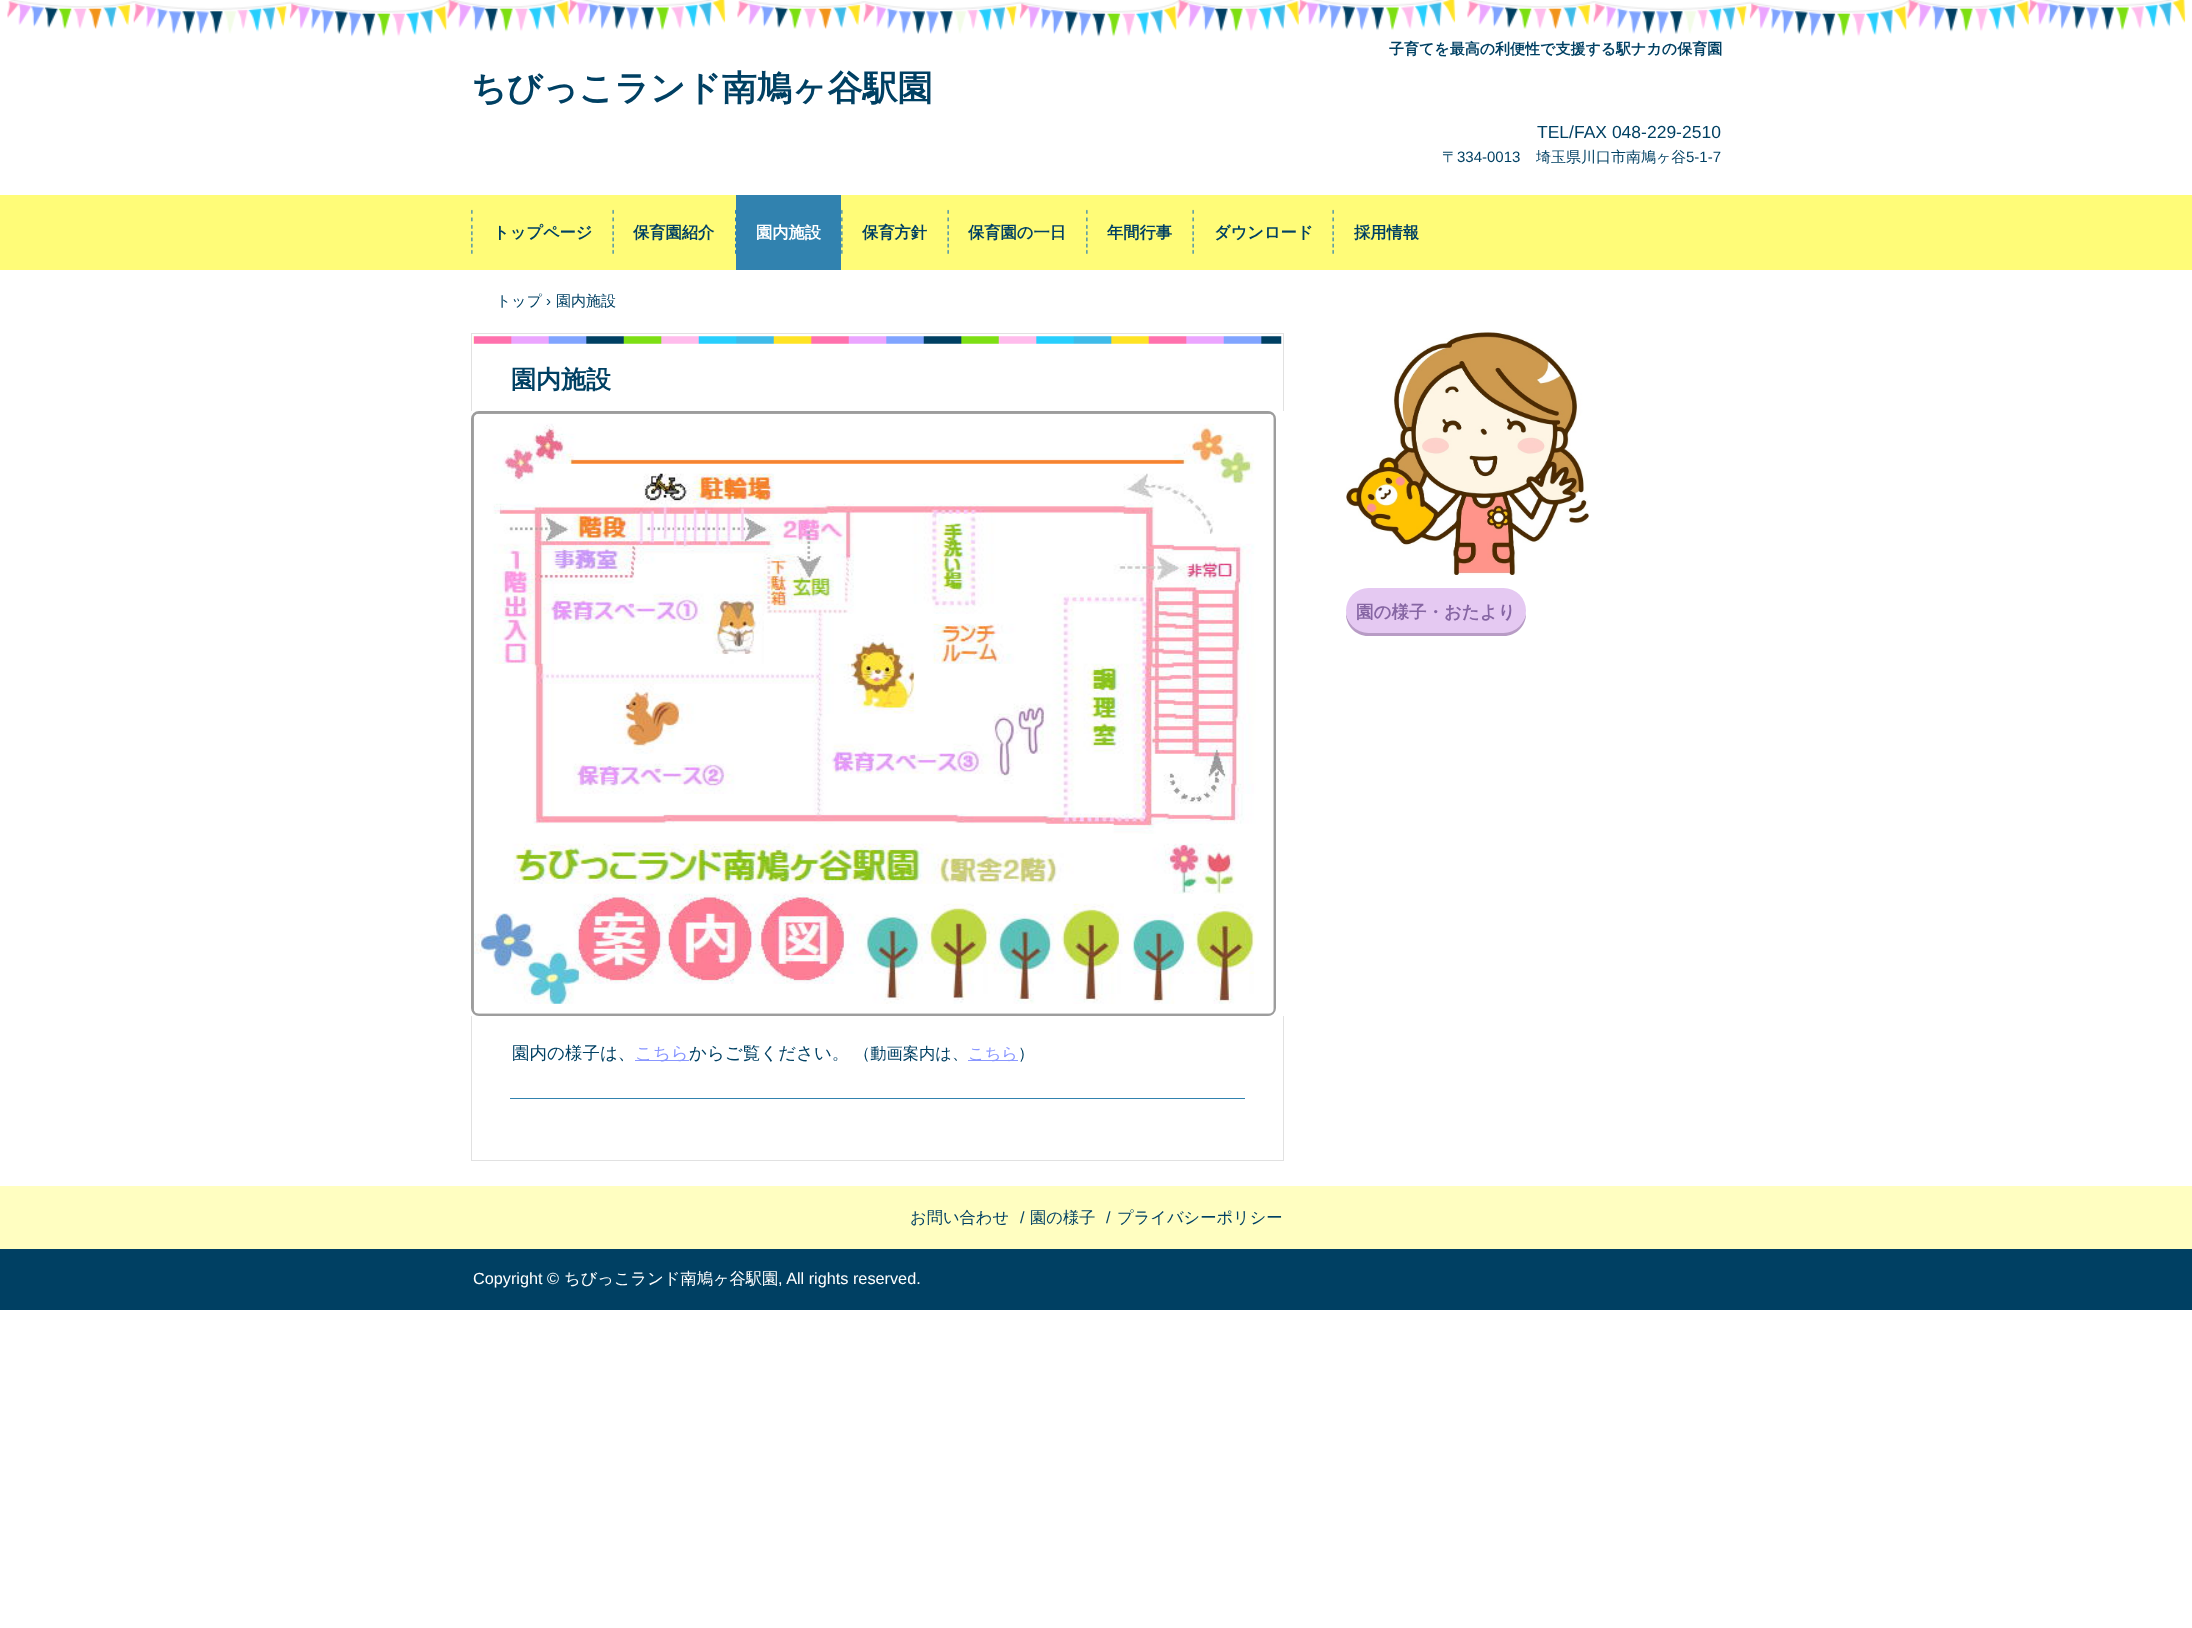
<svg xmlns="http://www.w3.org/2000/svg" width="2192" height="1628">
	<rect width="100%" height="100%" fill="#FFFFFF" />
	<image x="7" y="0" width="2179" height="37" href="assets/img1.png" />
	<text x="1389" y="54" font-family="WenQuanYi Zen Hei" font-size="15" font-weight="700" fill="#004063">子育てを最高の利便性で支援する駅ナカの保育園</text>
	<text x="471" y="100" font-family="WenQuanYi Zen Hei" font-size="35" font-weight="700" fill="#004063">ちびっこランド南鳩ヶ谷駅園</text>
	<text x="1537" y="138" font-family="Liberation Sans" font-size="17.5" fill="#004063">TEL/FAX 048-229-2510</text>
	<text x="1442" y="162" font-family="WenQuanYi Zen Hei" font-size="15" font-weight="500" fill="#004063">〒</text>
	<text x="1457" y="162" font-family="Liberation Sans" font-size="15" fill="#004063">334-0013</text>
	<text x="1536" y="162" font-family="WenQuanYi Zen Hei" font-size="15" font-weight="500" fill="#004063">埼玉県川口市南鳩ヶ谷</text>
	<text x="1686" y="162" font-family="Liberation Sans" font-size="15" fill="#004063">5-1-7</text>
	<rect x="0" y="195" width="2192" height="75" fill="#FFFC78" />
	<image x="471" y="209" width="2" height="45" href="assets/img2.png" />
	<text x="493" y="238" font-family="WenQuanYi Zen Hei" font-size="16.25" font-weight="700" fill="#004063">トップページ</text>
	<image x="612" y="209" width="2" height="45" href="assets/img3.png" />
	<text x="633" y="238" font-family="WenQuanYi Zen Hei" font-size="16.25" font-weight="700" fill="#004063">保育園紹介</text>
	<image x="735" y="209" width="1" height="45" href="assets/img4.png" />
	<rect x="736" y="195" width="105" height="75" fill="#3182AF" />
	<text x="756" y="238" font-family="WenQuanYi Zen Hei" font-size="16.25" font-weight="700" fill="#FFFFFF">園内施設</text>
	<image x="841" y="209" width="2" height="45" href="assets/img2.png" />
	<text x="862" y="238" font-family="WenQuanYi Zen Hei" font-size="16.25" font-weight="700" fill="#004063">保育方針</text>
	<image x="947" y="209" width="2" height="45" href="assets/img3.png" />
	<text x="968" y="238" font-family="WenQuanYi Zen Hei" font-size="16.25" font-weight="700" fill="#004063">保育園の一日</text>
	<image x="1086" y="209" width="2" height="45" href="assets/img2.png" />
	<text x="1107" y="238" font-family="WenQuanYi Zen Hei" font-size="16.25" font-weight="700" fill="#004063">年間行事</text>
	<image x="1192" y="209" width="2" height="45" href="assets/img3.png" />
	<text x="1214" y="238" font-family="WenQuanYi Zen Hei" font-size="16.25" font-weight="700" fill="#004063">ダウンロード</text>
	<image x="1332" y="209" width="2" height="45" href="assets/img3.png" />
	<text x="1354" y="238" font-family="WenQuanYi Zen Hei" font-size="16.25" font-weight="700" fill="#004063">採用情報</text>
	<text x="496" y="306" font-family="WenQuanYi Zen Hei" font-size="15" font-weight="500" fill="#004063">トップ</text>
	<text x="546" y="306" font-family="Liberation Sans" font-size="15" fill="#004063">›</text>
	<text x="556" y="306" font-family="WenQuanYi Zen Hei" font-size="15" font-weight="500" fill="#004063">園内施設</text>
	<rect x="471" y="333" width="813" height="1" fill="#E1E1E1" />
	<rect x="1283" y="333" width="1" height="78" fill="#E1E1E1" />
	<rect x="471" y="333" width="1" height="78" fill="#E1E1E1" />
	<image x="473" y="336" width="809" height="8" href="assets/img5.png" />
	<text x="511" y="388" font-family="WenQuanYi Zen Hei" font-size="25" font-weight="700" fill="#004063">園内施設</text>
	<rect x="472.5" y="412.5" width="802" height="602" rx="6.5" fill="none" stroke="#9D9D9D" stroke-width="3" />
	<image x="473" y="413" width="801" height="601" href="assets/img6.png" />
	<rect x="1283" y="1016" width="1" height="145" fill="#E1E1E1" />
	<rect x="471" y="1160" width="813" height="1" fill="#E1E1E1" />
	<rect x="471" y="1016" width="1" height="145" fill="#E1E1E1" />
	<text x="512" y="1059" font-family="WenQuanYi Zen Hei" font-size="17.5" font-weight="500" fill="#004063">園内の様子は、</text>
	<rect x="635" y="1060" width="54" height="1" fill="#8A97FF" />
	<text x="635" y="1059" font-family="WenQuanYi Zen Hei" font-size="17.5" font-weight="500" fill="#8A97FF">こちら</text>
	<text x="689" y="1059" font-family="WenQuanYi Zen Hei" font-size="17.5" font-weight="500" fill="#004063">からご覧ください。</text>
	<text x="854" y="1059" font-family="WenQuanYi Zen Hei" font-size="16.25" font-weight="500" fill="#004063">（動画案内は、</text>
	<rect x="968" y="1060" width="50" height="1" fill="#8A97FF" />
	<text x="968" y="1059" font-family="WenQuanYi Zen Hei" font-size="16.25" font-weight="500" fill="#8A97FF">こちら</text>
	<text x="1018" y="1059" font-family="WenQuanYi Zen Hei" font-size="16.25" font-weight="500" fill="#004063">）</text>
	<rect x="510" y="1098" width="735" height="1" fill="#3182AF" />
	<image x="1346" y="332" width="243" height="243" href="assets/img7.png" />
	<path d="M1346 610V614C1346 626 1356 636 1368 636H1504C1516 636 1526 626 1526 614V613C1524 624 1515 632 1504 632H1369C1356 632 1346 622 1346 610Z" fill="#B89CC5" />
	<rect x="1346" y="588" width="180" height="45" rx="22.5" fill="#E5C9F2" />
	<text x="1356" y="618" font-family="WenQuanYi Zen Hei" font-size="17.5" font-weight="700" fill="#8666A3">園の様子・おたより</text>
	<rect x="0" y="1186" width="2192" height="63" fill="#FFFEC1" />
	<text x="910" y="1223" font-family="WenQuanYi Zen Hei" font-size="16.25" font-weight="500" fill="#004063">お問い合わせ</text>
	<text x="1020" y="1223" font-family="Liberation Sans" font-size="16.25" fill="#004063">/</text>
	<text x="1030" y="1223" font-family="WenQuanYi Zen Hei" font-size="16.25" font-weight="500" fill="#004063">園の様子</text>
	<text x="1106" y="1223" font-family="Liberation Sans" font-size="16.25" fill="#004063">/</text>
	<text x="1117" y="1223" font-family="WenQuanYi Zen Hei" font-size="16.25" font-weight="500" fill="#004063">プライバシーポリシー</text>
	<rect x="0" y="1249" width="2192" height="61" fill="#004063" />
	<text x="473" y="1284" font-family="Liberation Sans" font-size="16.25" fill="#FFFFFF">Copyright ©</text>
	<text x="564" y="1284" font-family="WenQuanYi Zen Hei" font-size="16.25" font-weight="500" fill="#FFFFFF">ちびっこランド南鳩ヶ谷駅園</text>
	<text x="778" y="1284" font-family="Liberation Sans" font-size="16.25" fill="#FFFFFF">, All rights reserved.</text>
</svg>
